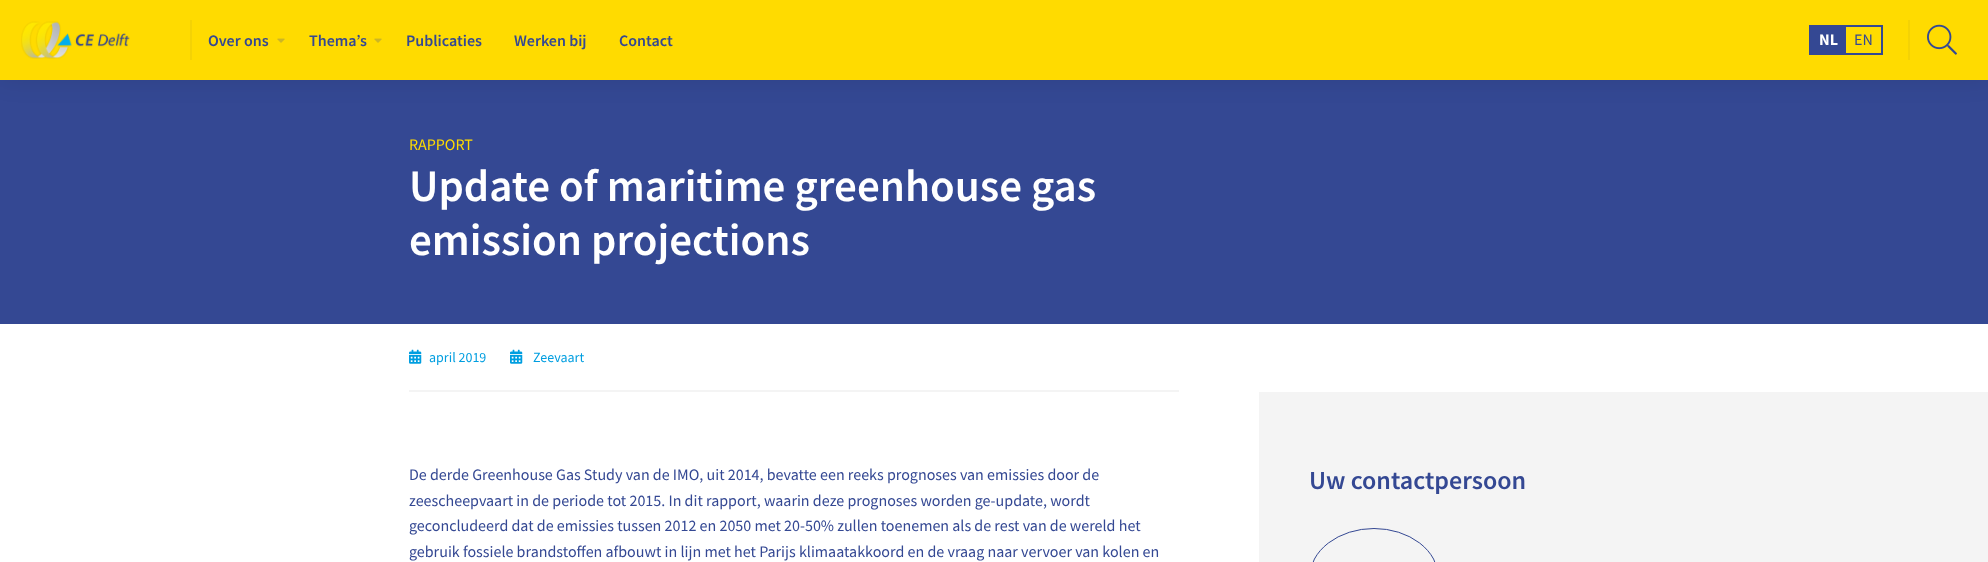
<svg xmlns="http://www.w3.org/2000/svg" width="1988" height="562">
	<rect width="100%" height="100%" fill="#FFFFFF" />
	<rect x="0" y="80" width="1988" height="244" fill="#344893" />
	<rect x="0" y="0" width="1988" height="80" fill="#000000" fill-opacity="0.09" filter="blur(12.5px)" />
	<rect x="0" y="0" width="1988" height="80" fill="#FFDB00" />
	<rect x="190" y="20" width="2" height="40" fill="#F4D205" />
	<image x="21" y="21" width="109" height="38" href="assets/img1.png" />
	<text x="208" y="46" font-family="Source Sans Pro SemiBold" font-size="16" font-weight="600" fill="#344893">Over ons</text>
	<image x="277" y="38" width="8" height="5" href="assets/img2.png" />
	<text x="309" y="46" font-family="Source Sans Pro SemiBold" font-size="16" font-weight="600" fill="#344893">Thema’s</text>
	<image x="374" y="38" width="8" height="5" href="assets/img2.png" />
	<g font-family="Source Sans Pro SemiBold" font-size="16" font-weight="600" fill="#344893">
		<text x="406" y="46">Publicaties</text>
		<text x="514" y="46">Werken bij</text>
		<text x="619" y="46">Contact</text>
	</g>
	<rect x="1810" y="26" width="72" height="28" fill="none" stroke="#344893" stroke-width="2" />
	<rect x="1811" y="27" width="35" height="26" fill="#344893" />
	<text x="1819" y="45" font-family="Source Sans Pro" font-size="16" font-weight="700" fill="#FFFFFF">NL</text>
	<text x="1854" y="45" font-family="Source Sans Pro" font-size="16" fill="#344893">EN</text>
	<rect x="1908" y="20" width="2" height="40" fill="#F4D205" />
	<image x="1927" y="24" width="30" height="31" href="assets/img3.png" />
	<text x="409" y="150" font-family="Source Sans Pro" font-size="16" fill="#FFDB00">RAPPORT</text>
	<g font-family="Source Sans Pro SemiBold" font-size="45" font-weight="600" fill="#FFFFFF">
		<text x="409" y="201">Update of maritime greenhouse gas</text>
		<text x="409" y="255">emission projections</text>
	</g>
	<rect x="409" y="390" width="770" height="2" fill="#F4F4F4" />
	<image x="409" y="349" width="13" height="15" href="assets/img4.png" />
	<text x="429" y="362" font-family="Source Sans Pro" font-size="14" fill="#009EE0">april 2019</text>
	<image x="510" y="349" width="13" height="15" href="assets/img4.png" />
	<text x="533" y="362" font-family="Source Sans Pro" font-size="14" fill="#009EE0">Zeevaart</text>
	<g font-family="Source Sans Pro" font-size="16" fill="#344893">
		<text x="409" y="480">De derde Greenhouse Gas Study van de IMO, uit 2014, bevatte een reeks prognoses van emissies door de</text>
		<text x="409" y="506">zeescheepvaart in de periode tot 2015. In dit rapport, waarin deze prognoses worden ge-update, wordt</text>
		<text x="409" y="531">geconcludeerd dat de emissies tussen 2012 en 2050 met 20-50% zullen toenemen als de rest van de wereld het</text>
		<text x="409" y="557">gebruik fossiele brandstoffen afbouwt in lijn met het Parijs klimaatakkoord en de vraag naar vervoer van kolen en</text>
	</g>
	<rect x="1259" y="392" width="729" height="170" fill="#F4F4F4" />
	<text x="1309" y="489" font-family="Source Sans Pro SemiBold" font-size="26" font-weight="600" fill="#344893">Uw contactpersoon</text>
	<rect x="1309.5" y="528.5" width="129" height="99" rx="64.5" fill="none" stroke="#344893" />
</svg>
